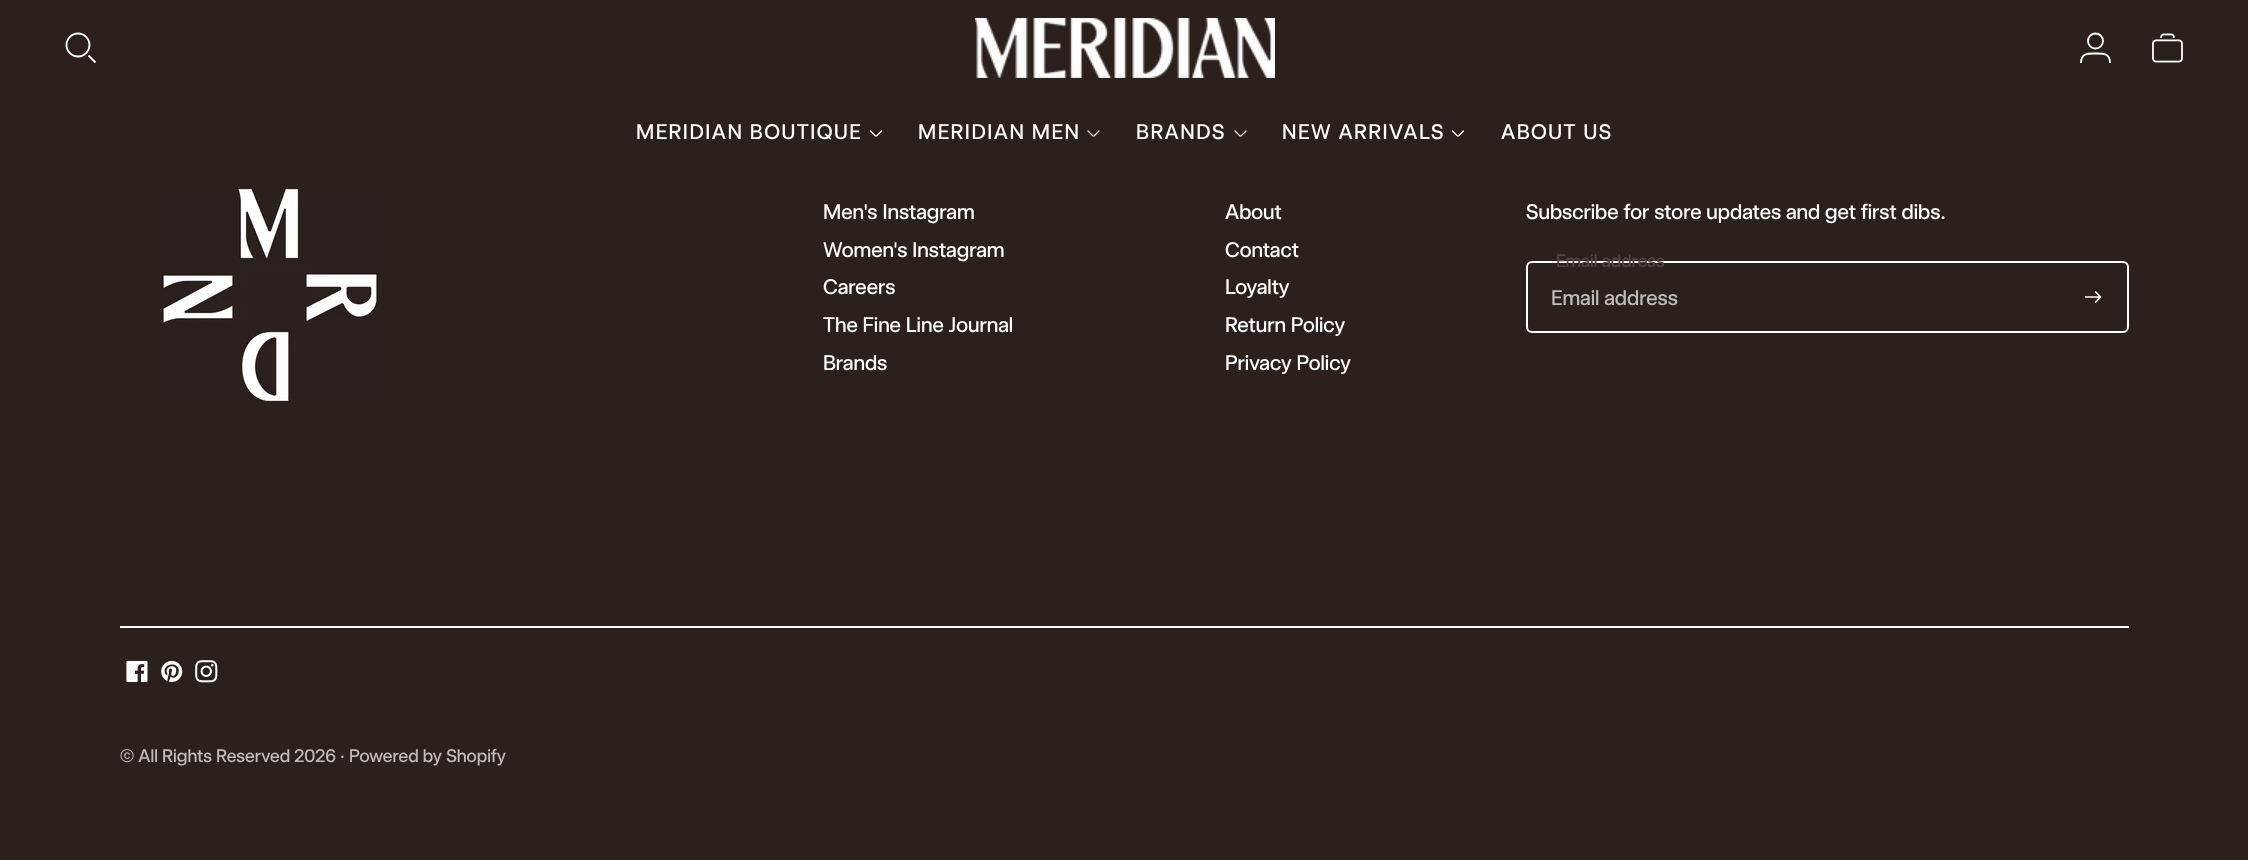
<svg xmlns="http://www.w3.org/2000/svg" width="2248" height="860">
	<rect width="100%" height="100%" fill="#2B201C" />
	<circle cx="78" cy="45" r="11.5" fill="none" stroke="#FFFFFF" stroke-width="1.8" />
	<path d="M88.5 55.5L95.5 62.5" fill="none" stroke="#FFFFFF" stroke-width="1.8" />
	<image x="975" y="18" width="300" height="60" href="assets/img1.png" />
	<circle cx="2095.5" cy="41" r="7.5" fill="none" stroke="#FFFFFF" stroke-width="1.8" />
	<path d="M2081 63C2081 53 2088 53.5 2095.5 53.5C2103 53.5 2110 53 2110 63" fill="none" stroke="#FFFFFF" stroke-width="1.8" />
	<image x="2152" y="33" width="31" height="30" href="assets/img2.png" />
	<text x="636" y="139" font-family="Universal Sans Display" font-size="21" letter-spacing="1.5" fill="#FFFFFF">MERIDIAN BOUTIQUE</text>
	<path d="M870.5 131L875.5 136H876.5L881.5 131" fill="none" stroke="#FFFFFF" stroke-width="1.2" stroke-linecap="round" stroke-linejoin="round" />
	<text x="918" y="139" font-family="Universal Sans Display" font-size="21" letter-spacing="1.5" fill="#FFFFFF">MERIDIAN MEN</text>
	<path d="M1088 131L1093 136H1094L1099 131" fill="none" stroke="#FFFFFF" stroke-width="1.2" stroke-linecap="round" stroke-linejoin="round" />
	<text x="1136" y="139" font-family="Universal Sans Display" font-size="21" letter-spacing="1.5" fill="#FFFFFF">BRANDS</text>
	<path d="M1235 131L1240 136H1241L1246 131" fill="none" stroke="#FFFFFF" stroke-width="1.2" stroke-linecap="round" stroke-linejoin="round" />
	<text x="1282" y="139" font-family="Universal Sans Display" font-size="21" letter-spacing="1.5" fill="#FFFFFF">NEW ARRIVALS</text>
	<path d="M1452.5 131L1457.5 136H1458.5L1463.5 131" fill="none" stroke="#FFFFFF" stroke-width="1.2" stroke-linecap="round" stroke-linejoin="round" />
	<text x="1501" y="139" font-family="Universal Sans Display" font-size="21" letter-spacing="1.5" fill="#FFFFFF">ABOUT US</text>
	<image x="160" y="189" width="220" height="214" href="assets/img3.png" />
	<g font-family="Universal Sans Display" font-size="21" fill="#FFFFFF">
		<text x="823" y="219">Men's Instagram</text>
		<text x="823" y="257">Women's Instagram</text>
		<text x="823" y="294">Careers</text>
		<text x="823" y="332">The Fine Line Journal</text>
		<text x="823" y="370">Brands</text>
		<text x="1225" y="219">About</text>
		<text x="1225" y="257">Contact</text>
		<text x="1225" y="294">Loyalty</text>
		<text x="1225" y="332">Return Policy</text>
		<text x="1225" y="370">Privacy Policy</text>
		<text x="1526" y="219">Subscribe for store updates and get first dibs.</text>
	</g>
	<rect x="1527" y="262" width="601" height="70" rx="5" fill="none" stroke="#FFFFFF" stroke-width="2" />
	<text x="1556" y="267" font-family="Universal Sans Display" font-size="18" fill="#504744">Email address</text>
	<text x="1551" y="305" font-family="Universal Sans Display" font-size="21" fill="#BFBCBB">Email address</text>
	<image x="2085" y="291" width="17" height="12" href="assets/img4.png" />
	<rect x="120" y="626" width="2009" height="2" fill="#FFFFFF" />
	<image x="126" y="660" width="22" height="22" href="assets/img5.png" />
	<image x="161" y="660" width="22" height="22" href="assets/img6.png" />
	<image x="195" y="660" width="23" height="23" href="assets/img7.png" />
	<text x="120" y="762" font-family="Universal Sans Display" font-size="18" fill="#BFBCBB">© All Rights Reserved 2026 · Powered by Shopify</text>
</svg>
